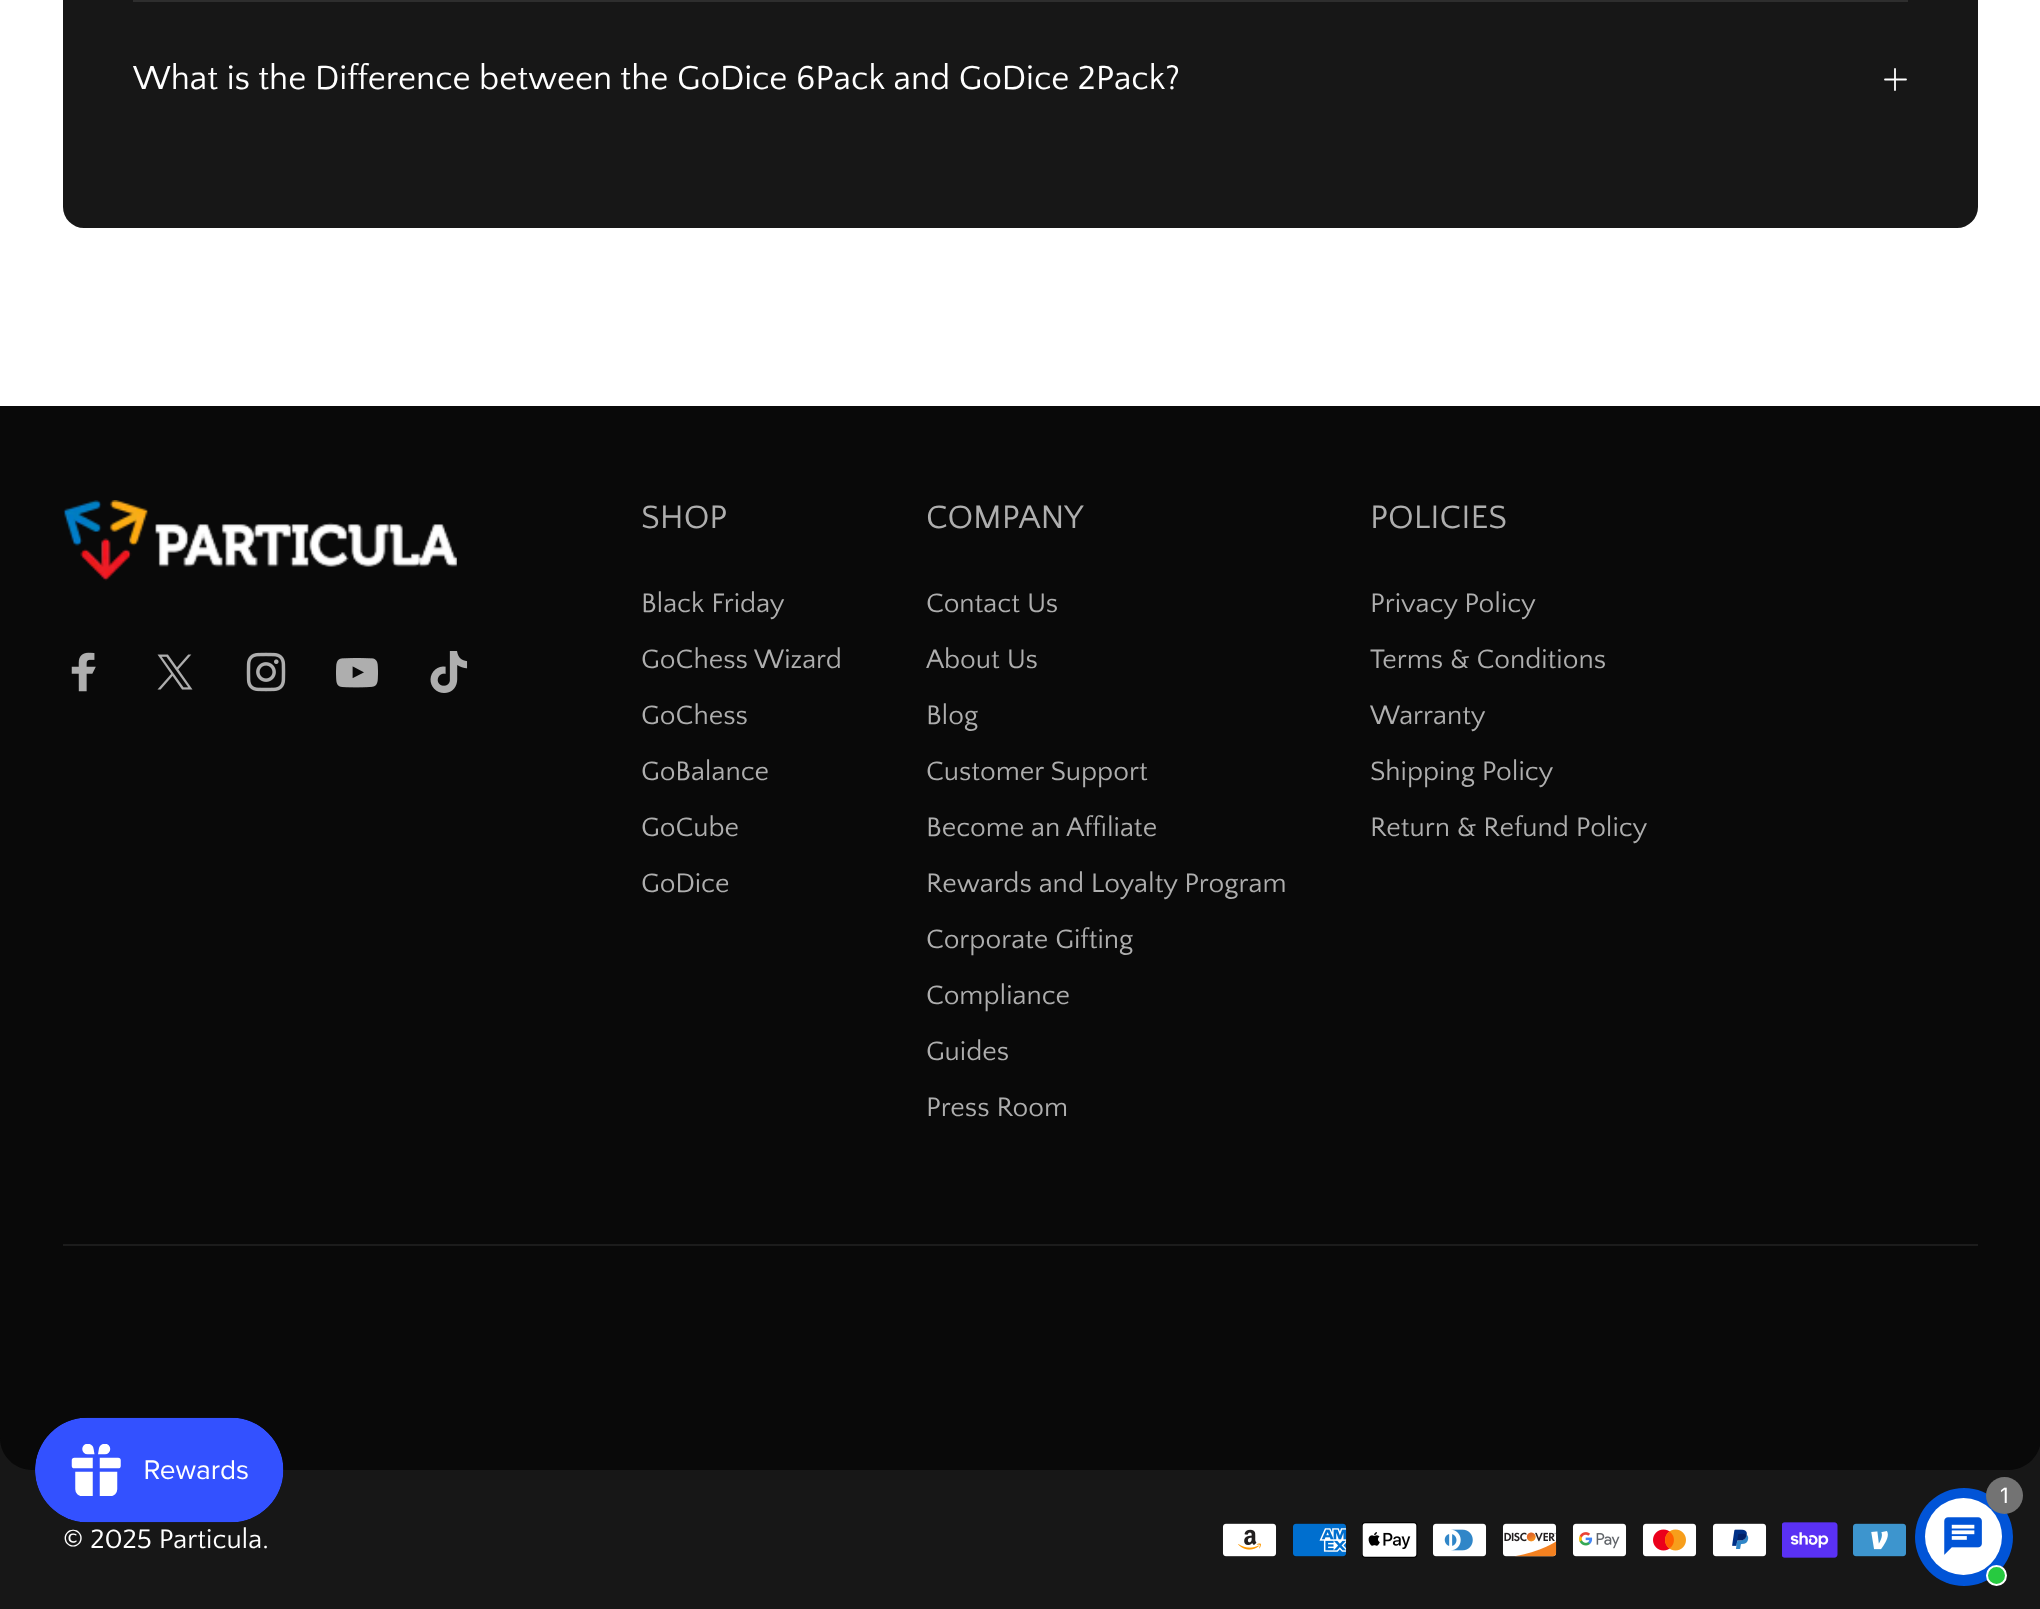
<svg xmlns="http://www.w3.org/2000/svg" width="2040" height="1609">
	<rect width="100%" height="100%" fill="#171717" />
	<path d="M0 341H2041V1438C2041 1455.5 2026.5 1470 2009 1470H32C14.5 1470 0 1455.5 0 1438Z" fill="#090909" />
	<rect x="0" y="0" width="2040" height="406" fill="#FFFFFF" />
	<rect x="63" y="-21" width="1915" height="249" rx="21" fill="#171717" />
	<rect x="133" y="0" width="1775" height="2" fill="#2E2E2E" />
	<text x="133" y="89" font-family="Quattrocento Sans" font-size="35" fill="#FFFFFF">What is the Difference between the GoDice 6Pack and GoDice 2Pack?</text>
	<path d="M1895 90V69M1906 79.5H1885" fill="none" stroke="#FFFFFF" stroke-width="1.8" stroke-linecap="round" stroke-linejoin="round" />
	<image x="63" y="500" width="394" height="81" href="assets/img1.png" />
	<image x="71" y="652" width="25" height="40" href="assets/img2.png" />
	<image x="157" y="654" width="36" height="36" href="assets/img3.png" />
	<image x="246" y="652" width="40" height="40" href="assets/img4.png" />
	<image x="336" y="658" width="42" height="30" href="assets/img5.png" />
	<image x="430" y="651" width="38" height="42" href="assets/img6.png" />
	<text x="641" y="528" font-family="Quattrocento Sans" font-size="34" fill="#AEAEAE">SHOP</text>
	<g font-family="Quattrocento Sans" font-size="28" fill="#AEAEAE">
		<text x="641" y="612">Black Friday</text>
		<text x="641" y="668">GoChess Wizard</text>
		<text x="641" y="724">GoChess</text>
		<text x="641" y="780">GoBalance</text>
		<text x="641" y="836">GoCube</text>
		<text x="641" y="892">GoDice</text>
	</g>
	<text x="926" y="528" font-family="Quattrocento Sans" font-size="34" fill="#AEAEAE">COMPANY</text>
	<g font-family="Quattrocento Sans" font-size="28" fill="#AEAEAE">
		<text x="926" y="612">Contact Us</text>
		<text x="926" y="668">About Us</text>
		<text x="926" y="724">Blog</text>
		<text x="926" y="780">Customer Support</text>
		<text x="926" y="836">Become an Affiliate</text>
		<text x="926" y="892">Rewards and Loyalty Program</text>
		<text x="926" y="948">Corporate Gifting</text>
		<text x="926" y="1004">Compliance</text>
		<text x="926" y="1060">Guides</text>
		<text x="926" y="1116">Press Room</text>
	</g>
	<text x="1370" y="528" font-family="Quattrocento Sans" font-size="34" fill="#AEAEAE">POLICIES</text>
	<g font-family="Quattrocento Sans" font-size="28" fill="#AEAEAE">
		<text x="1370" y="612">Privacy Policy</text>
		<text x="1370" y="668">Terms &amp; Conditions</text>
		<text x="1370" y="724">Warranty</text>
		<text x="1370" y="780">Shipping Policy</text>
		<text x="1370" y="836">Return &amp; Refund Policy</text>
	</g>
	<rect x="63" y="1244" width="1915" height="2" fill="#1C1C1C" />
	<text x="63" y="1548" font-family="Quattrocento Sans" font-size="28" fill="#FFFFFF">© 2025 Particula.</text>
	<image x="1222" y="1523" width="55" height="34" href="assets/img7.png" />
	<image x="1293" y="1523" width="54" height="34" href="assets/img8.png" />
	<image x="1362" y="1522" width="56" height="36" href="assets/img9.png" />
	<image x="1432" y="1523" width="55" height="34" href="assets/img10.png" />
	<image x="1502" y="1523" width="55" height="34" href="assets/img11.png" />
	<image x="1572" y="1523" width="55" height="34" href="assets/img12.png" />
	<image x="1642" y="1523" width="55" height="34" href="assets/img13.png" />
	<image x="1712" y="1523" width="55" height="34" href="assets/img14.png" />
	<image x="1782" y="1522" width="56" height="36" href="assets/img15.png" />
	<image x="1853" y="1523" width="53" height="34" href="assets/img16.png" />
	<image x="35" y="1417" width="249" height="106" href="assets/img17.png" />
	<circle cx="1964" cy="1537" r="49" fill="#0154D7" />
	<circle cx="1963.5" cy="1536.5" r="38.5" fill="#FFFFFF" />
	<circle cx="2004.5" cy="1495.5" r="18.5" fill="#737373" />
	<text x="2000" y="1503" font-family="Inter" font-size="21" fill="#FFFFFF">1</text>
	<image x="1944" y="1517" width="38" height="38" href="assets/img18.png" />
	<circle cx="1996.5" cy="1575.5" r="9.5" fill="#27CA40" stroke="#FFFFFF" stroke-width="2" />
</svg>
